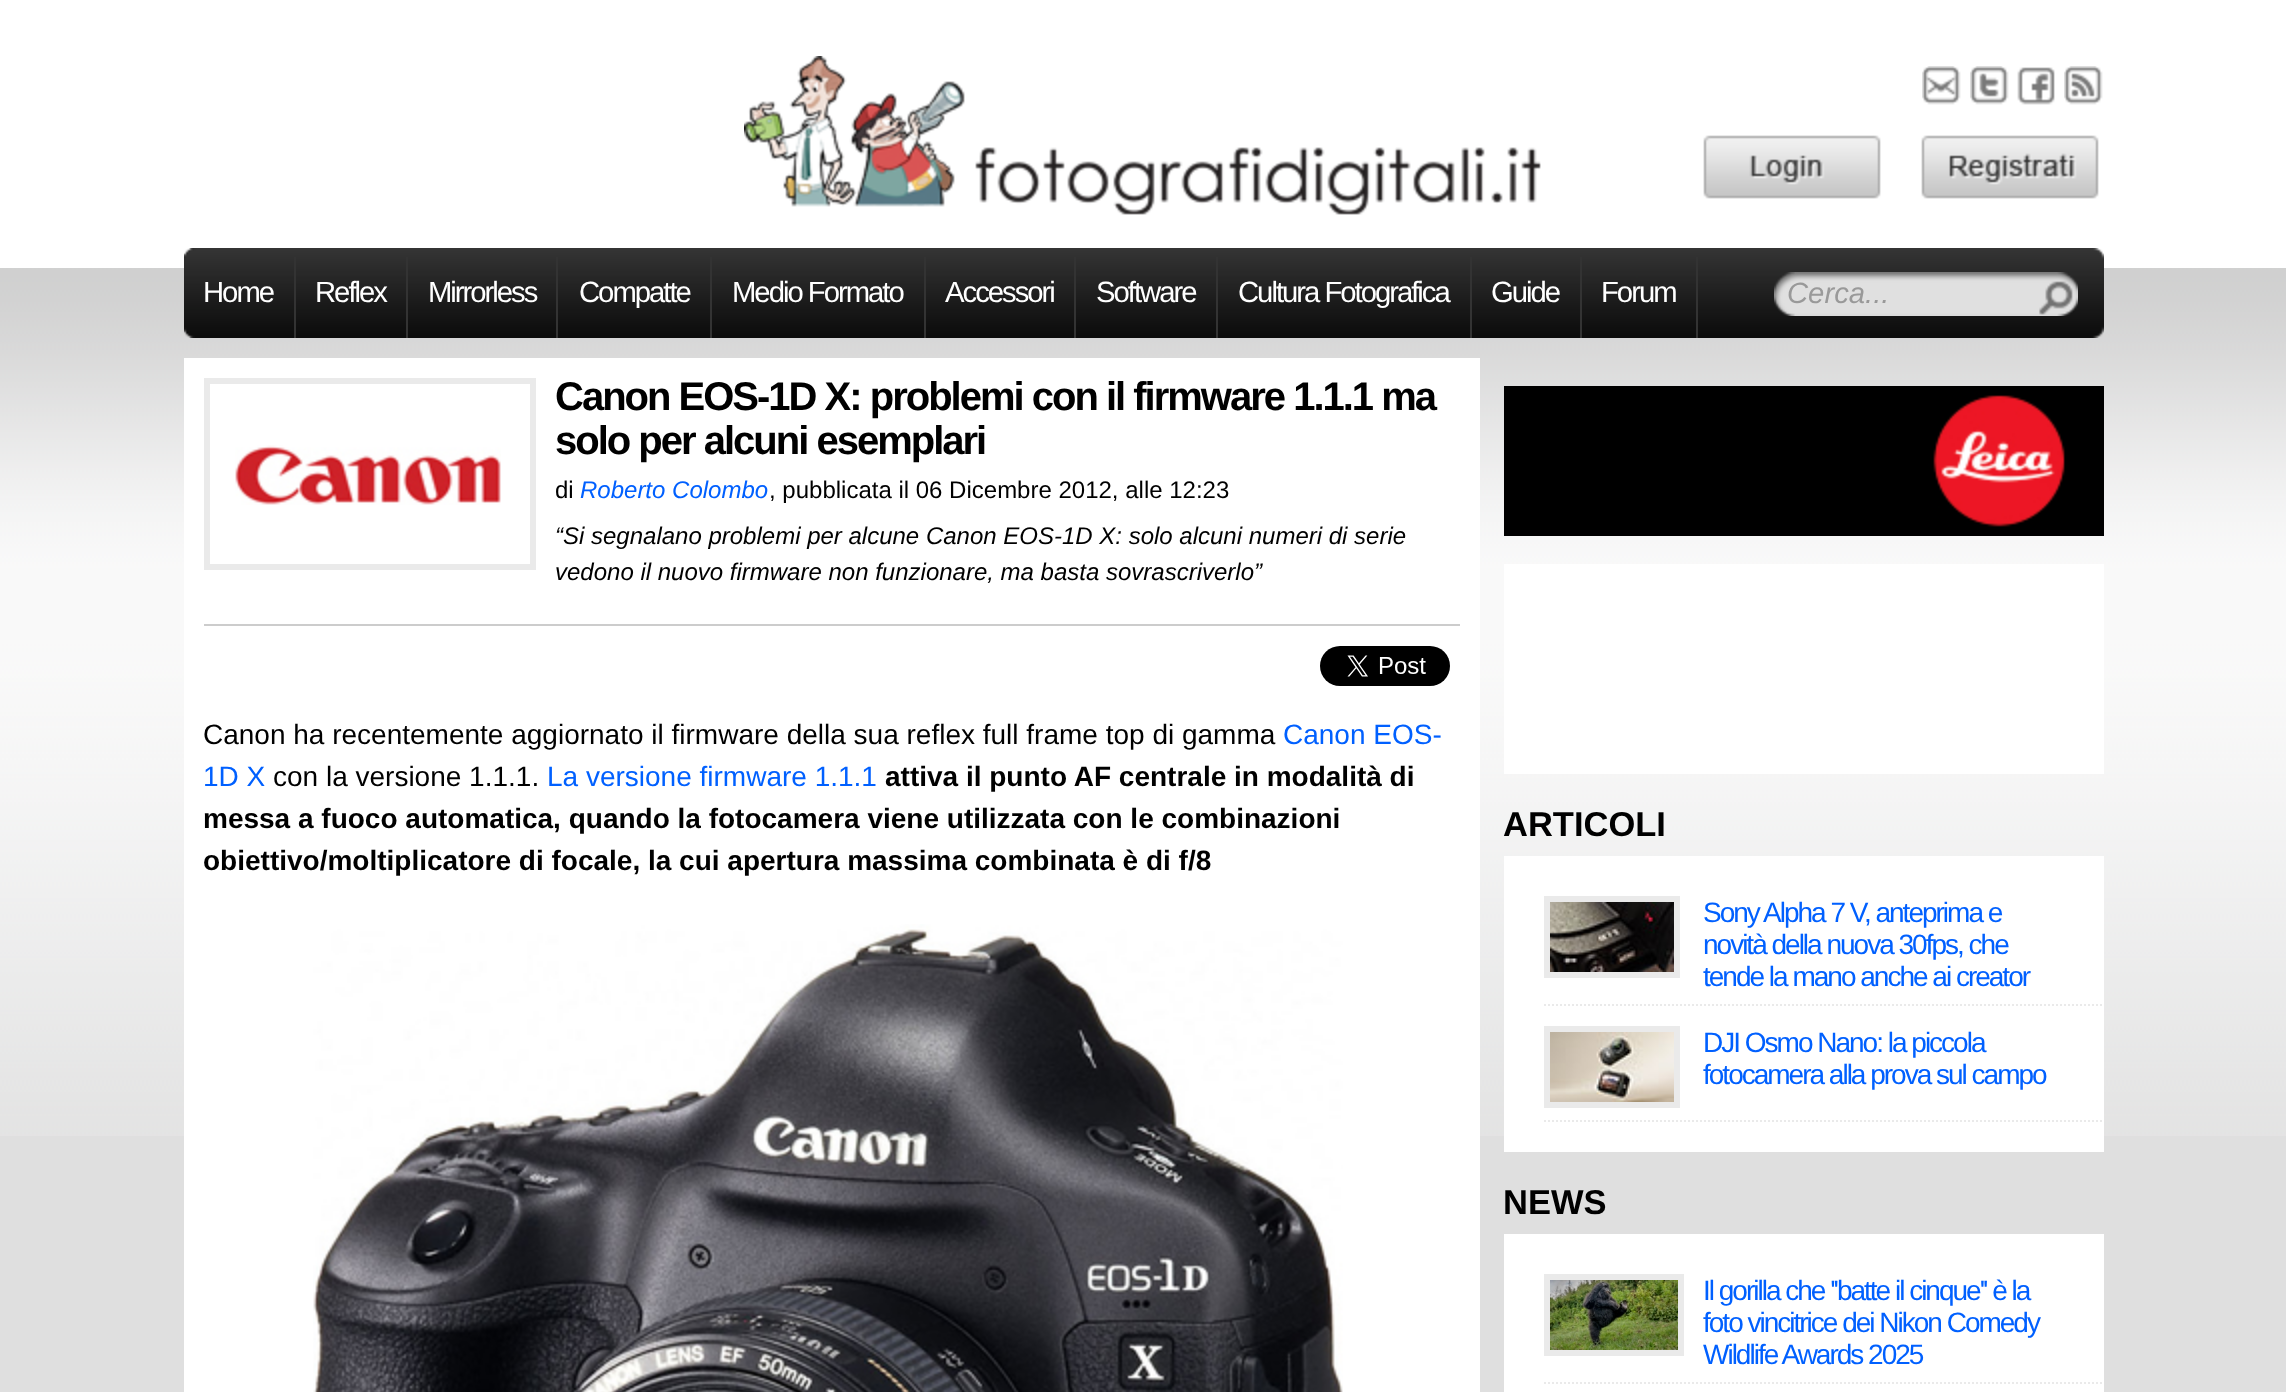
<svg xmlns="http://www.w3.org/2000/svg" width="2286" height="1392">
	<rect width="100%" height="100%" fill="#FFFFFF" />
	<rect x="0" y="1136" width="2286" height="256" fill="#DFDFDF" />
	<image x="744" y="56" width="797" height="159" href="assets/img1.png" />
	<image x="1922" y="66" width="39" height="39" href="assets/img2.png" />
	<image x="1970" y="66" width="39" height="39" href="assets/img3.png" />
	<image x="2017" y="67" width="38" height="38" href="assets/img4.png" />
	<image x="2064" y="66" width="39" height="39" href="assets/img5.png" />
	<image x="1703" y="135" width="178" height="64" href="assets/img6.png" />
	<image x="1921" y="135" width="178" height="64" href="assets/img7.png" />
	<image x="0" y="268" width="2286" height="868" href="assets/img8.png" />
	<image x="184" y="248" width="1920" height="90" href="assets/img9.png" />
	<rect x="294" y="257" width="2" height="81" fill="#333333" />
	<text x="203" y="302" font-family="Liberation Sans" font-size="29.25" letter-spacing="-2" fill="#FFFFFF">Home</text>
	<rect x="406" y="257" width="2" height="81" fill="#333333" />
	<text x="315" y="302" font-family="Liberation Sans" font-size="29.25" letter-spacing="-2" fill="#FFFFFF">Reflex</text>
	<rect x="556" y="257" width="2" height="81" fill="#333333" />
	<text x="428" y="302" font-family="Liberation Sans" font-size="29.25" letter-spacing="-2" fill="#FFFFFF">Mirrorless</text>
	<rect x="710" y="257" width="2" height="81" fill="#333333" />
	<text x="579" y="302" font-family="Liberation Sans" font-size="29.25" letter-spacing="-2" fill="#FFFFFF">Compatte</text>
	<rect x="924" y="257" width="2" height="81" fill="#333333" />
	<text x="732" y="302" font-family="Liberation Sans" font-size="29.25" letter-spacing="-2" fill="#FFFFFF">Medio Formato</text>
	<rect x="1074" y="257" width="2" height="81" fill="#333333" />
	<text x="945" y="302" font-family="Liberation Sans" font-size="29.25" letter-spacing="-2" fill="#FFFFFF">Accessori</text>
	<rect x="1216" y="257" width="2" height="81" fill="#333333" />
	<text x="1096" y="302" font-family="Liberation Sans" font-size="29.25" letter-spacing="-2" fill="#FFFFFF">Software</text>
	<rect x="1470" y="257" width="2" height="81" fill="#333333" />
	<text x="1238" y="302" font-family="Liberation Sans" font-size="29.25" letter-spacing="-2" fill="#FFFFFF">Cultura Fotografica</text>
	<rect x="1580" y="257" width="2" height="81" fill="#333333" />
	<text x="1491" y="302" font-family="Liberation Sans" font-size="29.25" letter-spacing="-2" fill="#FFFFFF">Guide</text>
	<rect x="1696" y="257" width="2" height="81" fill="#333333" />
	<text x="1601" y="302" font-family="Liberation Sans" font-size="29.25" letter-spacing="-2" fill="#FFFFFF">Forum</text>
	<image x="1774" y="272" width="304" height="44" href="assets/img10.png" />
	<text x="1787" y="303" font-family="Liberation Sans" font-size="29.25" font-style="italic" fill="#999999">Cerca...</text>
	<rect x="184" y="358" width="1296" height="1034" fill="#FFFFFF" />
	<rect x="204" y="624" width="1256" height="2" fill="#CCCCCC" />
	<rect x="207" y="381" width="326" height="186" fill="none" stroke="#EAEAEA" stroke-width="6" />
	<image x="235" y="445" width="266" height="60" href="assets/img11.png" />
	<g font-family="Liberation Sans" font-size="40" font-weight="700" letter-spacing="-2" fill="#000000">
		<text x="555" y="410">Canon EOS-1D X: problemi con il firmware 1.1.1 ma</text>
		<text x="555" y="454">solo per alcuni esemplari</text>
	</g>
	<text x="555" y="498" font-family="Liberation Sans" font-size="24" fill="#000000">di</text>
	<text x="580" y="498" font-family="Liberation Sans" font-size="24" font-style="italic" fill="#0060FF">Roberto Colombo</text>
	<text x="769" y="498" font-family="Liberation Sans" font-size="24" fill="#000000">, pubblicata il 06 Dicembre 2012, alle 12:23</text>
	<g font-family="Liberation Sans" font-size="24" font-style="italic" fill="#000000">
		<text x="555" y="544">“Si segnalano problemi per alcune Canon EOS-1D X: solo alcuni numeri di serie</text>
		<text x="555" y="580">vedono il nuovo firmware non funzionare, ma basta sovrascriverlo”</text>
	</g>
	<image x="1320" y="646" width="130" height="40" href="assets/img12.png" />
	<text x="203" y="744" font-family="Liberation Sans" font-size="28" fill="#000000">Canon ha recentemente aggiornato il firmware della sua reflex full frame top di gamma</text>
	<g font-family="Liberation Sans" font-size="28" fill="#0060FF">
		<text x="1283" y="744">Canon EOS-</text>
		<text x="203" y="786">1D X</text>
	</g>
	<text x="273" y="786" font-family="Liberation Sans" font-size="28" fill="#000000">con la versione 1.1.1.</text>
	<text x="547" y="786" font-family="Liberation Sans" font-size="28" fill="#0060FF">La versione firmware 1.1.1</text>
	<g font-family="Liberation Sans" font-size="28" font-weight="700" fill="#000000">
		<text x="885" y="786">attiva il punto AF centrale in modalità di</text>
		<text x="203" y="828">messa a fuoco automatica, quando la fotocamera viene utilizzata con le combinazioni</text>
		<text x="203" y="870">obiettivo/moltiplicatore di focale, la cui apertura massima combinata è di f/8</text>
	</g>
	<image x="313" y="924" width="1030" height="468" href="assets/img13.png" />
	<image x="1504" y="386" width="600" height="150" href="assets/img14.png" />
	<rect x="1504" y="564" width="600" height="210" fill="#FFFFFF" />
	<text x="1503" y="836" font-family="Liberation Sans" font-size="34.5" font-weight="700" fill="#000000">ARTICOLI</text>
	<rect x="1504" y="856" width="600" height="296" fill="#FFFFFF" />
	<path d="M1544 1005H2104" fill="none" stroke="#EAEAEA" stroke-width="2" stroke-dasharray="2 2" />
	<rect x="1547" y="899" width="130" height="76" fill="none" stroke="#EAEAEA" stroke-width="6" />
	<image x="1550" y="902" width="124" height="70" href="assets/img15.png" />
	<g font-family="Liberation Sans" font-size="28" letter-spacing="-2" fill="#0060FF">
		<text x="1703" y="922">Sony Alpha 7 V, anteprima e</text>
		<text x="1703" y="954">novità della nuova 30fps, che</text>
		<text x="1703" y="986">tende la mano anche ai creator</text>
	</g>
	<path d="M1544 1121H2104" fill="none" stroke="#EAEAEA" stroke-width="2" stroke-dasharray="2 2" />
	<rect x="1547" y="1029" width="130" height="76" fill="none" stroke="#EAEAEA" stroke-width="6" />
	<image x="1550" y="1032" width="124" height="70" href="assets/img16.png" />
	<g font-family="Liberation Sans" font-size="28" letter-spacing="-2" fill="#0060FF">
		<text x="1703" y="1052">DJI Osmo Nano: la piccola</text>
		<text x="1703" y="1084">fotocamera alla prova sul campo</text>
	</g>
	<text x="1503" y="1214" font-family="Liberation Sans" font-size="34.5" font-weight="700" fill="#000000">NEWS</text>
	<rect x="1504" y="1234" width="600" height="158" fill="#FFFFFF" />
	<path d="M1544 1383H2104" fill="none" stroke="#EAEAEA" stroke-width="2" stroke-dasharray="2 2" />
	<rect x="1547" y="1277" width="134" height="76" fill="none" stroke="#EAEAEA" stroke-width="6" />
	<image x="1550" y="1280" width="128" height="70" href="assets/img17.png" />
	<g font-family="Liberation Sans" font-size="28" letter-spacing="-2" fill="#0060FF">
		<text x="1703" y="1300">Il gorilla che ''batte il cinque'' è la</text>
		<text x="1703" y="1332">foto vincitrice dei Nikon Comedy</text>
		<text x="1703" y="1364">Wildlife Awards 2025</text>
	</g>
</svg>
